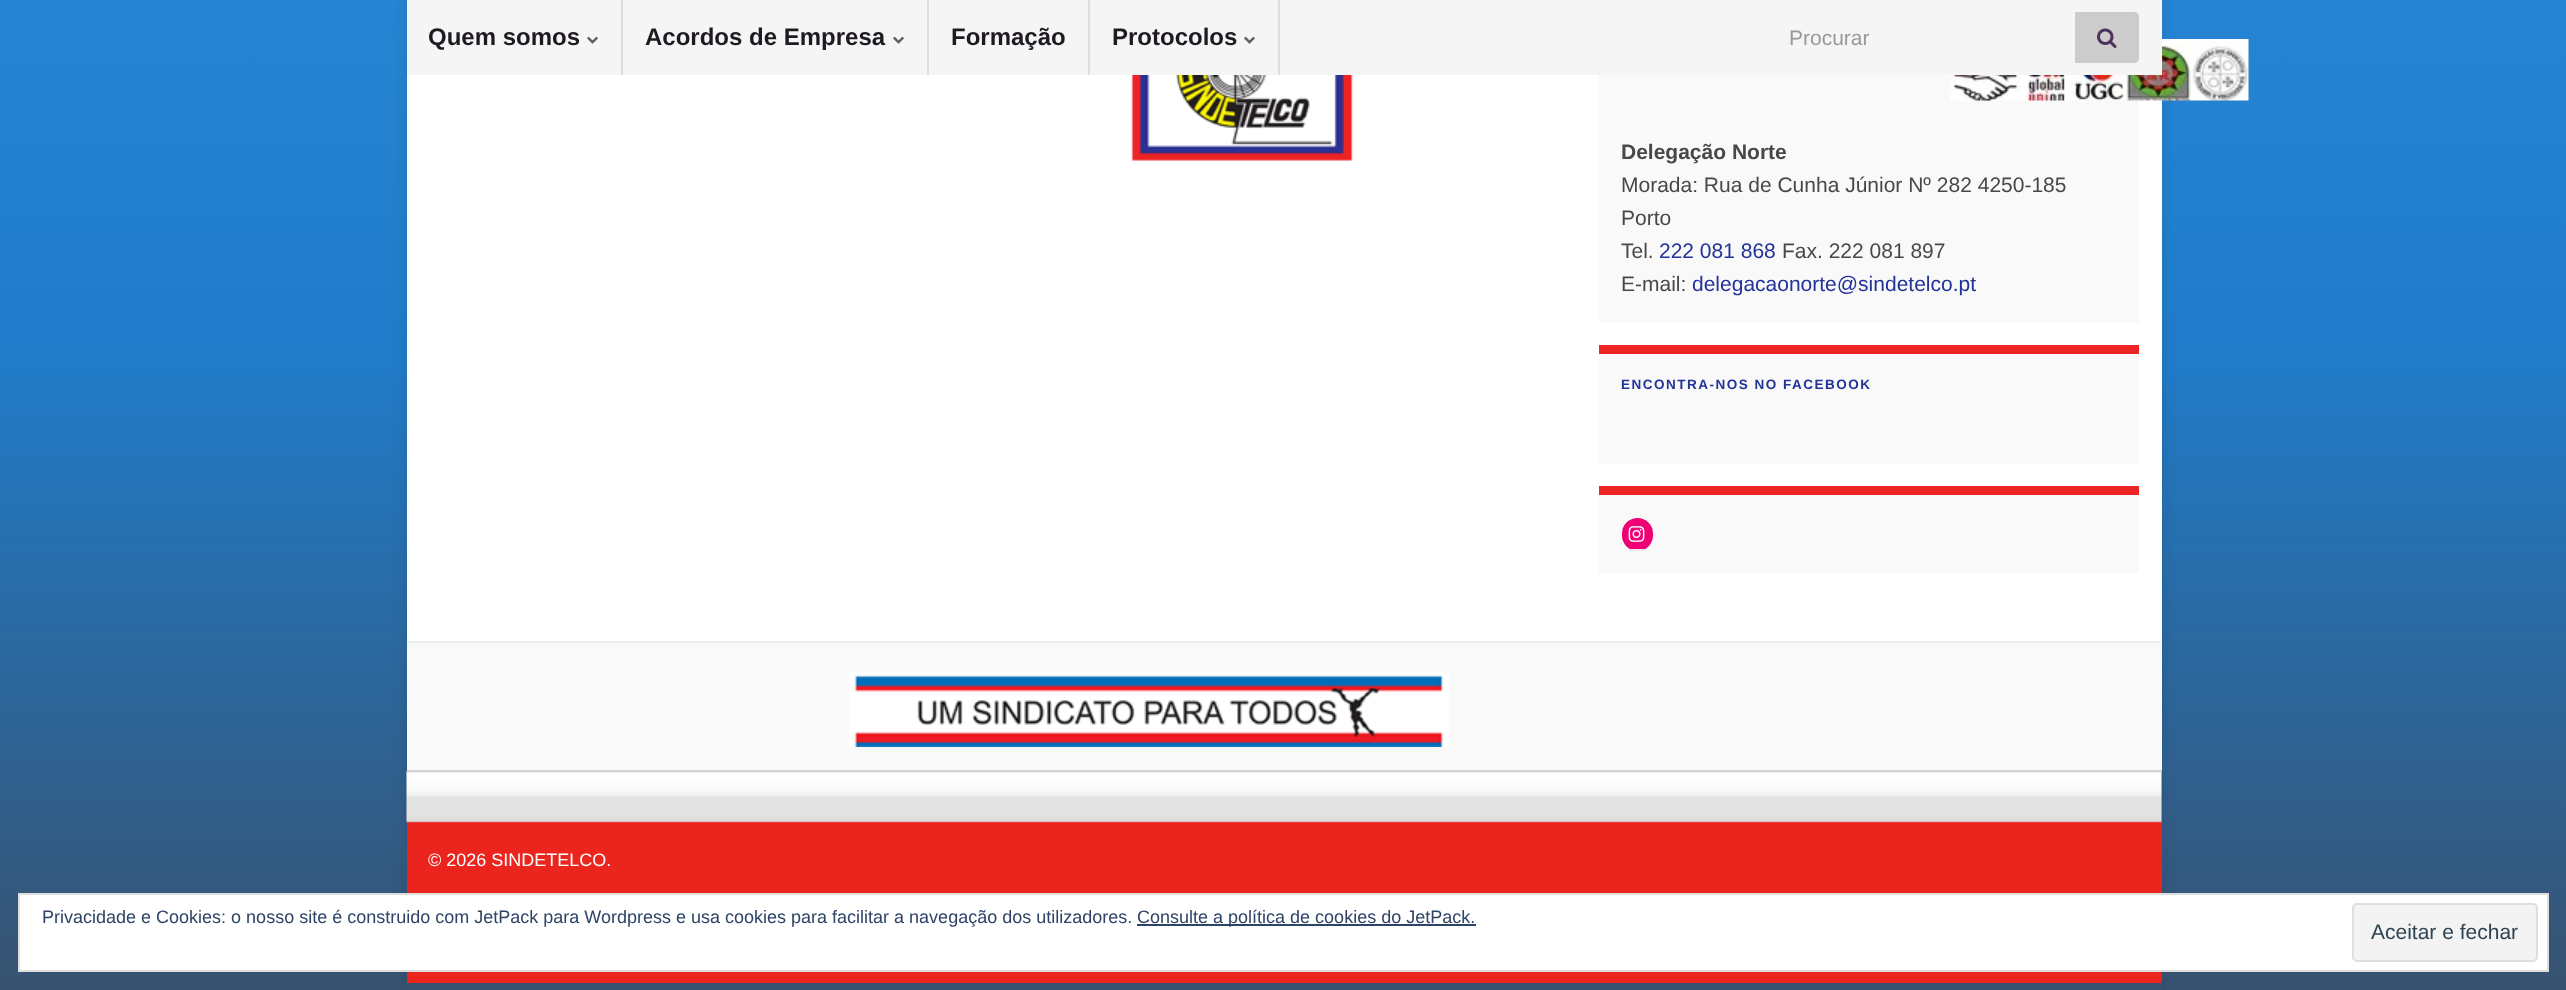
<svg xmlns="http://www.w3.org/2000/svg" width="2566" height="990">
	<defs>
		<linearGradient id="g1" gradientUnits="userSpaceOnUse" x1="1283" y1="-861" x2="1283" y2="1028"><stop offset="0" stop-color="#D82B2E" /><stop offset="0.37" stop-color="#2989D8" /><stop offset="0.64" stop-color="#207CCA" /><stop offset="1" stop-color="#39506B" /></linearGradient>
		<clipPath id="clip1"><path d="M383 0H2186V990H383ZM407-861H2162V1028H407Z" clip-rule="evenodd" /></clipPath>
	</defs>
	<rect width="100%" height="100%" fill="#FFFFFF" />
	<rect x="0" y="0" width="2566" height="990" fill="url(#g1)" />
	<g clip-path="url(#clip1)">
		<rect x="407" y="-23" width="1755" height="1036" fill="#000000" fill-opacity="0.1" filter="blur(7.5px)" />
	</g>
	<rect x="407" y="75" width="1755" height="566" fill="#FFFFFF" />
	<rect x="1599" y="75" width="540" height="248" fill="#F9F9F9" />
	<image x="1950" y="39" width="299" height="62" href="assets/img4.png" />
	<rect x="407" y="0" width="1755" height="75" fill="#F5F5F5" />
	<rect x="621" y="0" width="2" height="75" fill="#DDDDDD" />
	<text x="428" y="45" font-family="Liberation Sans" font-size="24" font-weight="700" fill="#1F1A22">Quem somos</text>
	<image x="587" y="36" width="11" height="8" href="assets/img1.png" />
	<rect x="927" y="0" width="2" height="75" fill="#DDDDDD" />
	<text x="645" y="45" font-family="Liberation Sans" font-size="24" font-weight="700" fill="#1F1A22">Acordos de Empresa</text>
	<image x="893" y="36" width="11" height="8" href="assets/img1.png" />
	<rect x="1088" y="0" width="2" height="75" fill="#DDDDDD" />
	<text x="951" y="45" font-family="Liberation Sans" font-size="24" font-weight="700" fill="#1F1A22">Formação</text>
	<rect x="1278" y="0" width="2" height="75" fill="#DDDDDD" />
	<text x="1112" y="45" font-family="Liberation Sans" font-size="24" font-weight="700" fill="#1F1A22">Protocolos</text>
	<image x="1244" y="36" width="11" height="8" href="assets/img1.png" />
	<text x="1789" y="45" font-family="Liberation Sans" font-size="21" fill="#999999">Procurar</text>
	<path d="M2075 12H2134C2137 12 2139 14 2139 17V58C2139 61 2137 63 2134 63H2075Z" fill="#CCCCCC" />
	<image x="2097" y="28" width="20" height="20" href="assets/img2.png" />
	<image x="1131" y="75" width="223" height="86" href="assets/img3.png" />
	<text x="1621" y="159" font-family="Liberation Sans" font-size="21" font-weight="700" fill="#4A474B">Delegação Norte</text>
	<g font-family="Liberation Sans" font-size="21" fill="#4A474B">
		<text x="1621" y="192">Morada: Rua de Cunha Júnior Nº 282 4250-185</text>
		<text x="1621" y="225">Porto</text>
		<text x="1621" y="258">Tel.</text>
	</g>
	<text x="1659" y="258" font-family="Liberation Sans" font-size="21" fill="#213299">222 081 868</text>
	<g font-family="Liberation Sans" font-size="21" fill="#4A474B">
		<text x="1782" y="258">Fax. 222 081 897</text>
		<text x="1621" y="291">E-mail:</text>
	</g>
	<text x="1692" y="291" font-family="Liberation Sans" font-size="21" fill="#213299">delegacaonorte@sindetelco.pt</text>
	<rect x="1599" y="354" width="540" height="110" fill="#F9F9F9" />
	<rect x="1599" y="345" width="540" height="9" fill="#ED2324" />
	<text x="1621" y="389" font-family="Liberation Sans" font-size="13.5" font-weight="700" letter-spacing="1.5" fill="#213299">ENCONTRA-NOS NO FACEBOOK</text>
	<rect x="1599" y="495" width="540" height="78" fill="#F9F9F9" />
	<rect x="1599" y="486" width="540" height="9" fill="#ED2324" />
	<rect x="1622" y="518" width="31" height="33" rx="15.5" fill="#F00075" />
	<rect x="1629" y="549" width="17" height="2" fill="#E9E9E9" />
	<image x="1628" y="526" width="17" height="16" href="assets/img5.png" />
	<rect x="407" y="643" width="1755" height="127" fill="#F9F9F9" />
	<rect x="407" y="641" width="1755" height="2" fill="#EEEEEE" />
	<image x="849" y="672" width="600" height="75" href="assets/img6.png" />
	<rect x="407" y="772" width="1755" height="211" fill="#EC241E" />
	<image x="406" y="770" width="1756" height="53" href="assets/img7.png" />
	<rect x="407" y="770" width="1755" height="2" fill="#D5D5D5" />
	<text x="428" y="866" font-family="Liberation Sans" font-size="18" fill="#FFFFFF">© 2026 SINDETELCO.</text>
	<rect x="19" y="894" width="2529" height="77" fill="#FFFFFF" stroke="#DEDEDE" stroke-width="2" />
	<text x="42" y="923" font-family="Liberation Sans" font-size="18" fill="#2E4467">Privacidade e Cookies: o nosso site é construido com JetPack para Wordpress e usa cookies para facilitar a navegação dos utilizadores.</text>
	<rect x="1137" y="924" width="339" height="2" fill="#2E4467" />
	<text x="1137" y="923" font-family="Liberation Sans" font-size="18" fill="#2E4467">Consulte a política de cookies do JetPack.</text>
	<rect x="2353" y="904" width="184" height="57" rx="4" fill="#F3F3F3" stroke="#DEDEDE" stroke-width="2" />
	<text x="2371" y="939" font-family="Liberation Sans" font-size="21" fill="#2E4453">Aceitar e fechar</text>
</svg>
